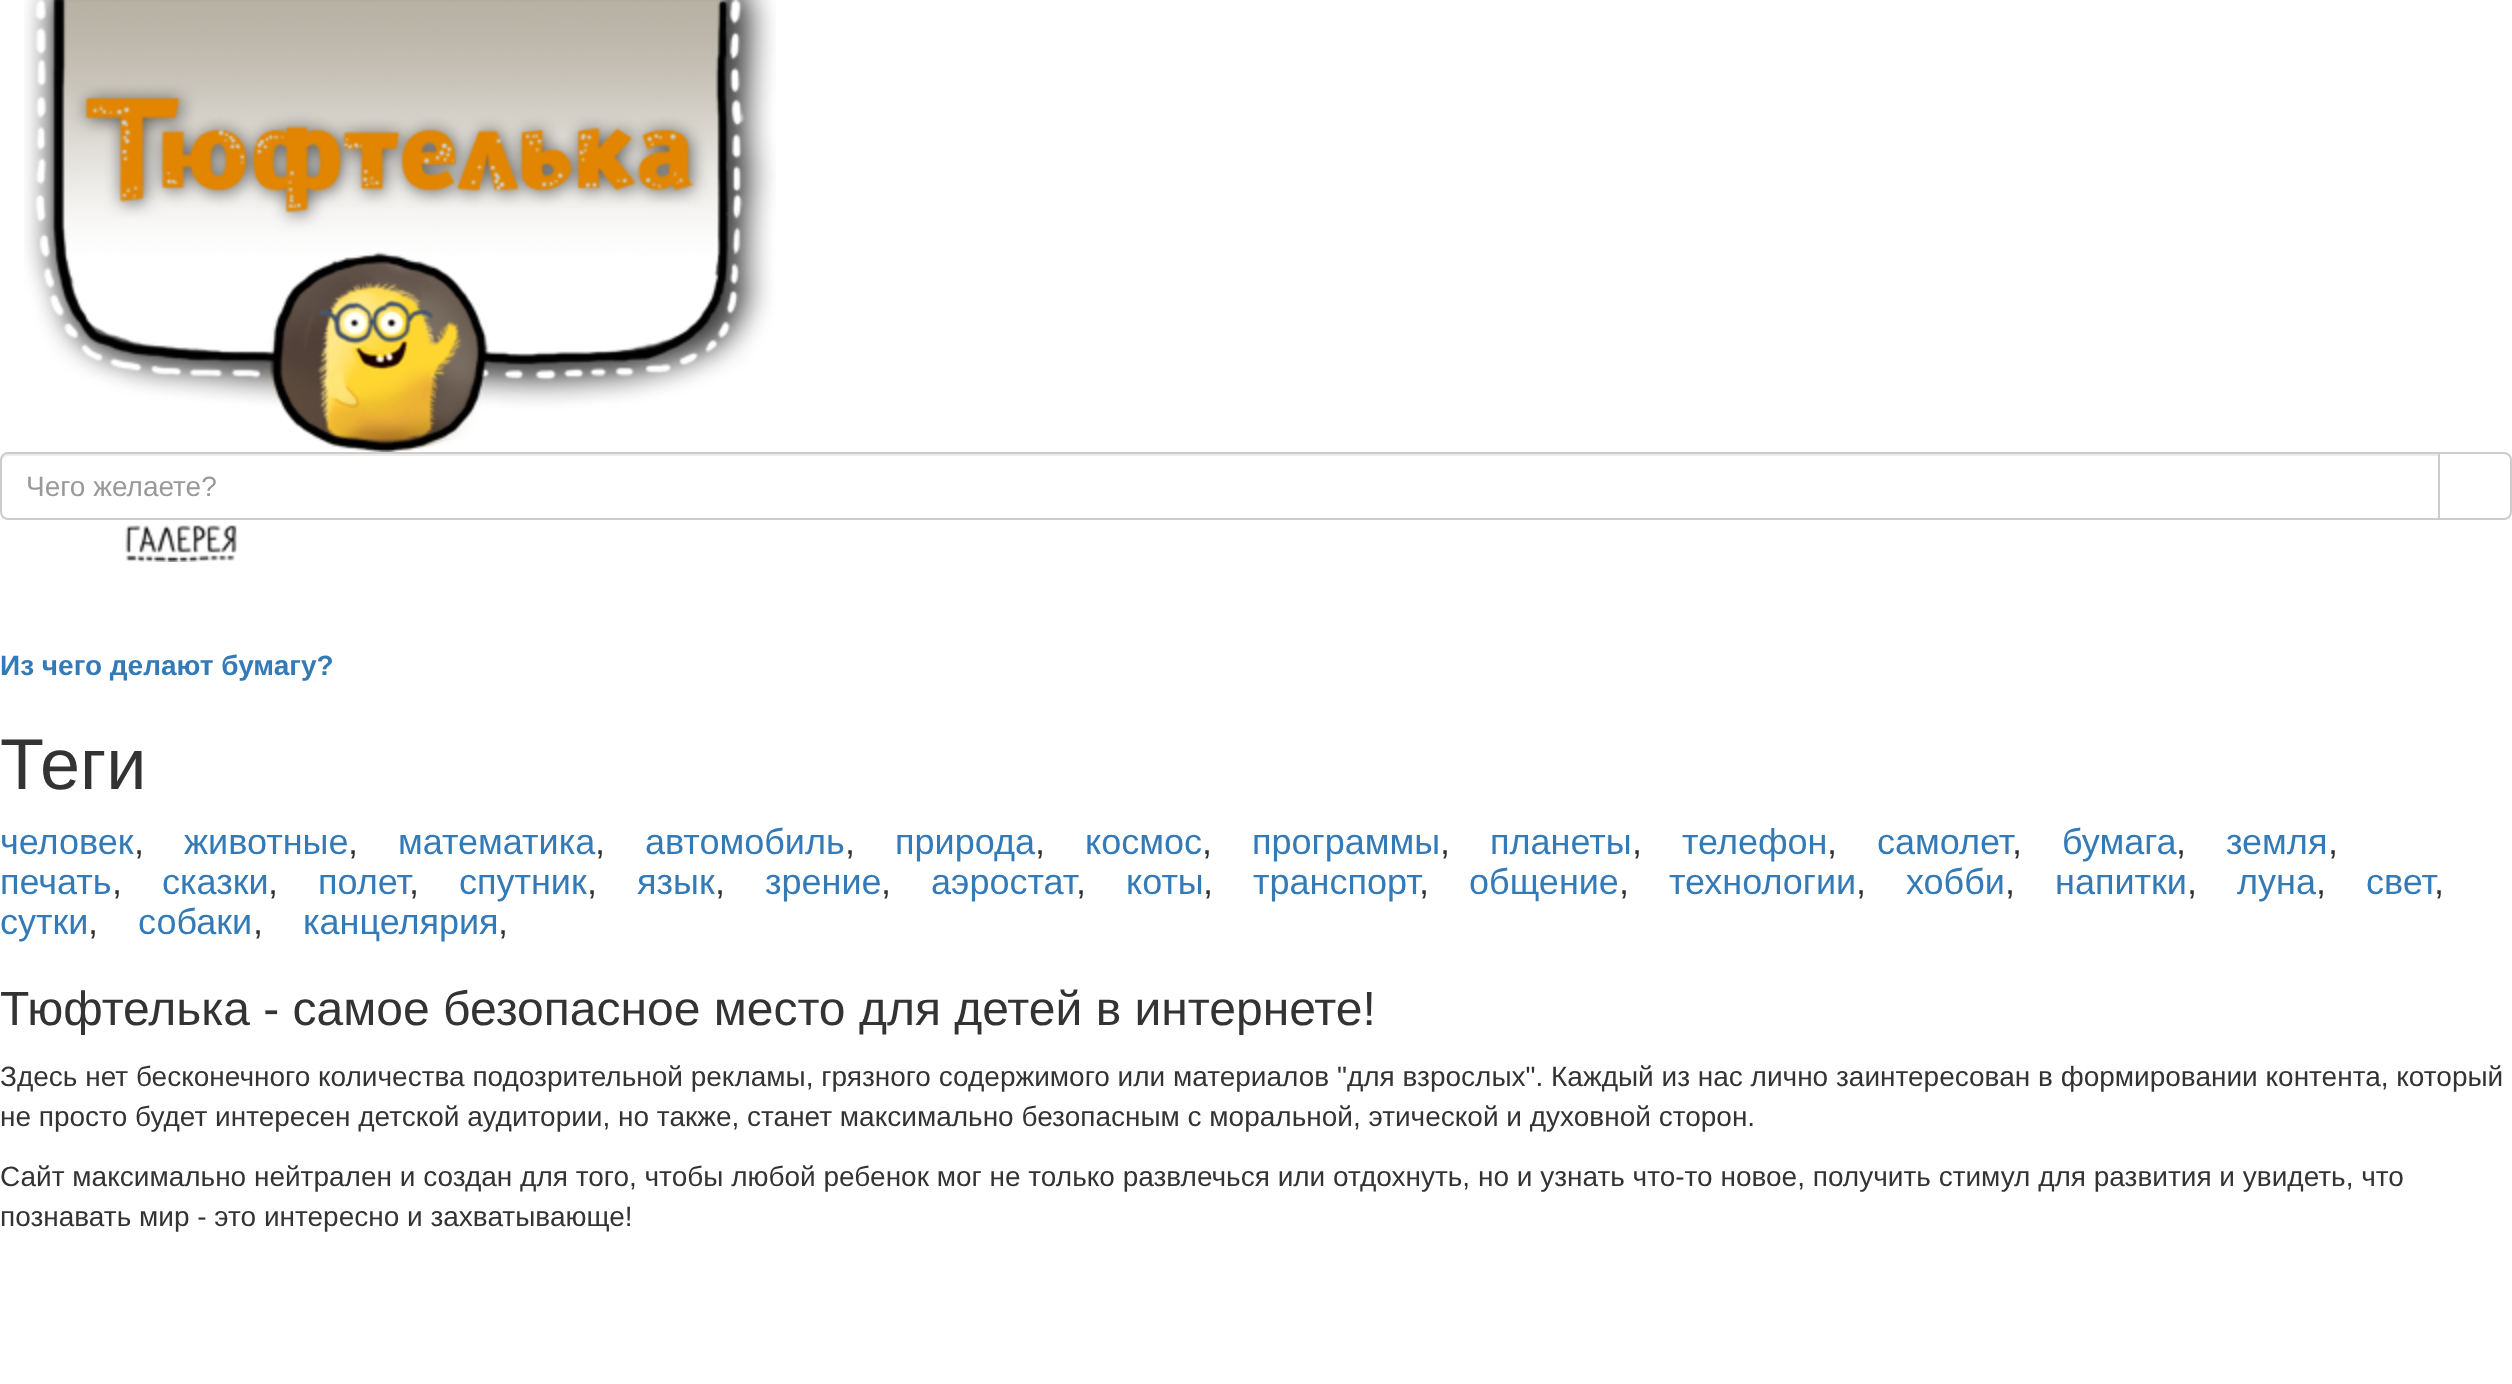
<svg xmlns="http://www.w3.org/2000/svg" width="2512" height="1384">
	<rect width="100%" height="100%" fill="#FFFFFF" />
	<image x="24" y="0" width="752" height="452" href="assets/img1.png" />
	<path d="M8 456H2438V454H8C3 454 2 458 2 462C2 459 5 456 8 456Z" fill="#ECECEC" />
	<path d="M8 453H2439V519H8C4 519 1 516 1 512V460C1 456 4 453 8 453Z" fill="none" stroke="#CCCCCC" stroke-width="2" />
	<text x="26" y="496" font-family="Liberation Sans" font-size="28" fill="#999999">Чего желаете?</text>
	<path d="M2439 453H2504C2508 453 2511 456 2511 460V512C2511 516 2508 519 2504 519H2439Z" fill="#FFFFFF" stroke="#CCCCCC" stroke-width="2" />
	<image x="125" y="525" width="112" height="37" href="assets/img2.png" />
	<text x="0" y="675" font-family="Liberation Sans" font-size="28" font-weight="700" fill="#337AB7">Из чего делают бумагу?</text>
	<text x="0" y="789" font-family="Liberation Sans" font-size="72" fill="#333333">Теги</text>
	<text x="0" y="854" font-family="Liberation Sans" font-size="36" fill="#337AB7">человек</text>
	<text x="134" y="854" font-family="Liberation Sans" font-size="36" fill="#333333">,</text>
	<text x="184" y="854" font-family="Liberation Sans" font-size="36" fill="#337AB7">животные</text>
	<text x="348" y="854" font-family="Liberation Sans" font-size="36" fill="#333333">,</text>
	<text x="398" y="854" font-family="Liberation Sans" font-size="36" fill="#337AB7">математика</text>
	<text x="595" y="854" font-family="Liberation Sans" font-size="36" fill="#333333">,</text>
	<text x="645" y="854" font-family="Liberation Sans" font-size="36" fill="#337AB7">автомобиль</text>
	<text x="845" y="854" font-family="Liberation Sans" font-size="36" fill="#333333">,</text>
	<text x="895" y="854" font-family="Liberation Sans" font-size="36" fill="#337AB7">природа</text>
	<text x="1035" y="854" font-family="Liberation Sans" font-size="36" fill="#333333">,</text>
	<text x="1085" y="854" font-family="Liberation Sans" font-size="36" fill="#337AB7">космос</text>
	<text x="1202" y="854" font-family="Liberation Sans" font-size="36" fill="#333333">,</text>
	<text x="1252" y="854" font-family="Liberation Sans" font-size="36" fill="#337AB7">программы</text>
	<text x="1440" y="854" font-family="Liberation Sans" font-size="36" fill="#333333">,</text>
	<text x="1490" y="854" font-family="Liberation Sans" font-size="36" fill="#337AB7">планеты</text>
	<text x="1632" y="854" font-family="Liberation Sans" font-size="36" fill="#333333">,</text>
	<text x="1682" y="854" font-family="Liberation Sans" font-size="36" fill="#337AB7">телефон</text>
	<text x="1827" y="854" font-family="Liberation Sans" font-size="36" fill="#333333">,</text>
	<text x="1877" y="854" font-family="Liberation Sans" font-size="36" fill="#337AB7">самолет</text>
	<text x="2012" y="854" font-family="Liberation Sans" font-size="36" fill="#333333">,</text>
	<text x="2062" y="854" font-family="Liberation Sans" font-size="36" fill="#337AB7">бумага</text>
	<text x="2176" y="854" font-family="Liberation Sans" font-size="36" fill="#333333">,</text>
	<text x="2226" y="854" font-family="Liberation Sans" font-size="36" fill="#337AB7">земля</text>
	<text x="2328" y="854" font-family="Liberation Sans" font-size="36" fill="#333333">,</text>
	<text x="0" y="894" font-family="Liberation Sans" font-size="36" fill="#337AB7">печать</text>
	<text x="112" y="894" font-family="Liberation Sans" font-size="36" fill="#333333">,</text>
	<text x="162" y="894" font-family="Liberation Sans" font-size="36" fill="#337AB7">сказки</text>
	<text x="268" y="894" font-family="Liberation Sans" font-size="36" fill="#333333">,</text>
	<text x="318" y="894" font-family="Liberation Sans" font-size="36" fill="#337AB7">полет</text>
	<text x="409" y="894" font-family="Liberation Sans" font-size="36" fill="#333333">,</text>
	<text x="459" y="894" font-family="Liberation Sans" font-size="36" fill="#337AB7">спутник</text>
	<text x="587" y="894" font-family="Liberation Sans" font-size="36" fill="#333333">,</text>
	<text x="637" y="894" font-family="Liberation Sans" font-size="36" fill="#337AB7">язык</text>
	<text x="715" y="894" font-family="Liberation Sans" font-size="36" fill="#333333">,</text>
	<text x="765" y="894" font-family="Liberation Sans" font-size="36" fill="#337AB7">зрение</text>
	<text x="881" y="894" font-family="Liberation Sans" font-size="36" fill="#333333">,</text>
	<text x="931" y="894" font-family="Liberation Sans" font-size="36" fill="#337AB7">аэростат</text>
	<text x="1076" y="894" font-family="Liberation Sans" font-size="36" fill="#333333">,</text>
	<text x="1126" y="894" font-family="Liberation Sans" font-size="36" fill="#337AB7">коты</text>
	<text x="1203" y="894" font-family="Liberation Sans" font-size="36" fill="#333333">,</text>
	<text x="1253" y="894" font-family="Liberation Sans" font-size="36" fill="#337AB7">транспорт</text>
	<text x="1419" y="894" font-family="Liberation Sans" font-size="36" fill="#333333">,</text>
	<text x="1469" y="894" font-family="Liberation Sans" font-size="36" fill="#337AB7">общение</text>
	<text x="1619" y="894" font-family="Liberation Sans" font-size="36" fill="#333333">,</text>
	<text x="1669" y="894" font-family="Liberation Sans" font-size="36" fill="#337AB7">технологии</text>
	<text x="1856" y="894" font-family="Liberation Sans" font-size="36" fill="#333333">,</text>
	<text x="1906" y="894" font-family="Liberation Sans" font-size="36" fill="#337AB7">хобби</text>
	<text x="2005" y="894" font-family="Liberation Sans" font-size="36" fill="#333333">,</text>
	<text x="2055" y="894" font-family="Liberation Sans" font-size="36" fill="#337AB7">напитки</text>
	<text x="2187" y="894" font-family="Liberation Sans" font-size="36" fill="#333333">,</text>
	<text x="2237" y="894" font-family="Liberation Sans" font-size="36" fill="#337AB7">луна</text>
	<text x="2316" y="894" font-family="Liberation Sans" font-size="36" fill="#333333">,</text>
	<text x="2366" y="894" font-family="Liberation Sans" font-size="36" fill="#337AB7">свет</text>
	<text x="2434" y="894" font-family="Liberation Sans" font-size="36" fill="#333333">,</text>
	<text x="0" y="934" font-family="Liberation Sans" font-size="36" fill="#337AB7">сутки</text>
	<text x="88" y="934" font-family="Liberation Sans" font-size="36" fill="#333333">,</text>
	<text x="138" y="934" font-family="Liberation Sans" font-size="36" fill="#337AB7">собаки</text>
	<text x="253" y="934" font-family="Liberation Sans" font-size="36" fill="#333333">,</text>
	<text x="303" y="934" font-family="Liberation Sans" font-size="36" fill="#337AB7">канцелярия</text>
	<text x="498" y="934" font-family="Liberation Sans" font-size="36" fill="#333333">,</text>
	<text x="0" y="1025" font-family="Liberation Sans" font-size="48" fill="#333333">Тюфтелька - самое безопасное место для детей в интернете!</text>
	<g font-family="Liberation Sans" font-size="28" fill="#333333">
		<text x="0" y="1086">Здесь нет бесконечного количества подозрительной рекламы, грязного содержимого или материалов "для взрослых". Каждый из нас лично заинтересован в формировании контента, который</text>
		<text x="0" y="1126">не просто будет интересен детской аудитории, но также, станет максимально безопасным с моральной, этической и духовной сторон.</text>
		<text x="0" y="1186">Сайт максимально нейтрален и создан для того, чтобы любой ребенок мог не только развлечься или отдохнуть, но и узнать что-то новое, получить стимул для развития и увидеть, что</text>
		<text x="0" y="1226">познавать мир - это интересно и захватывающе!</text>
	</g>
</svg>
